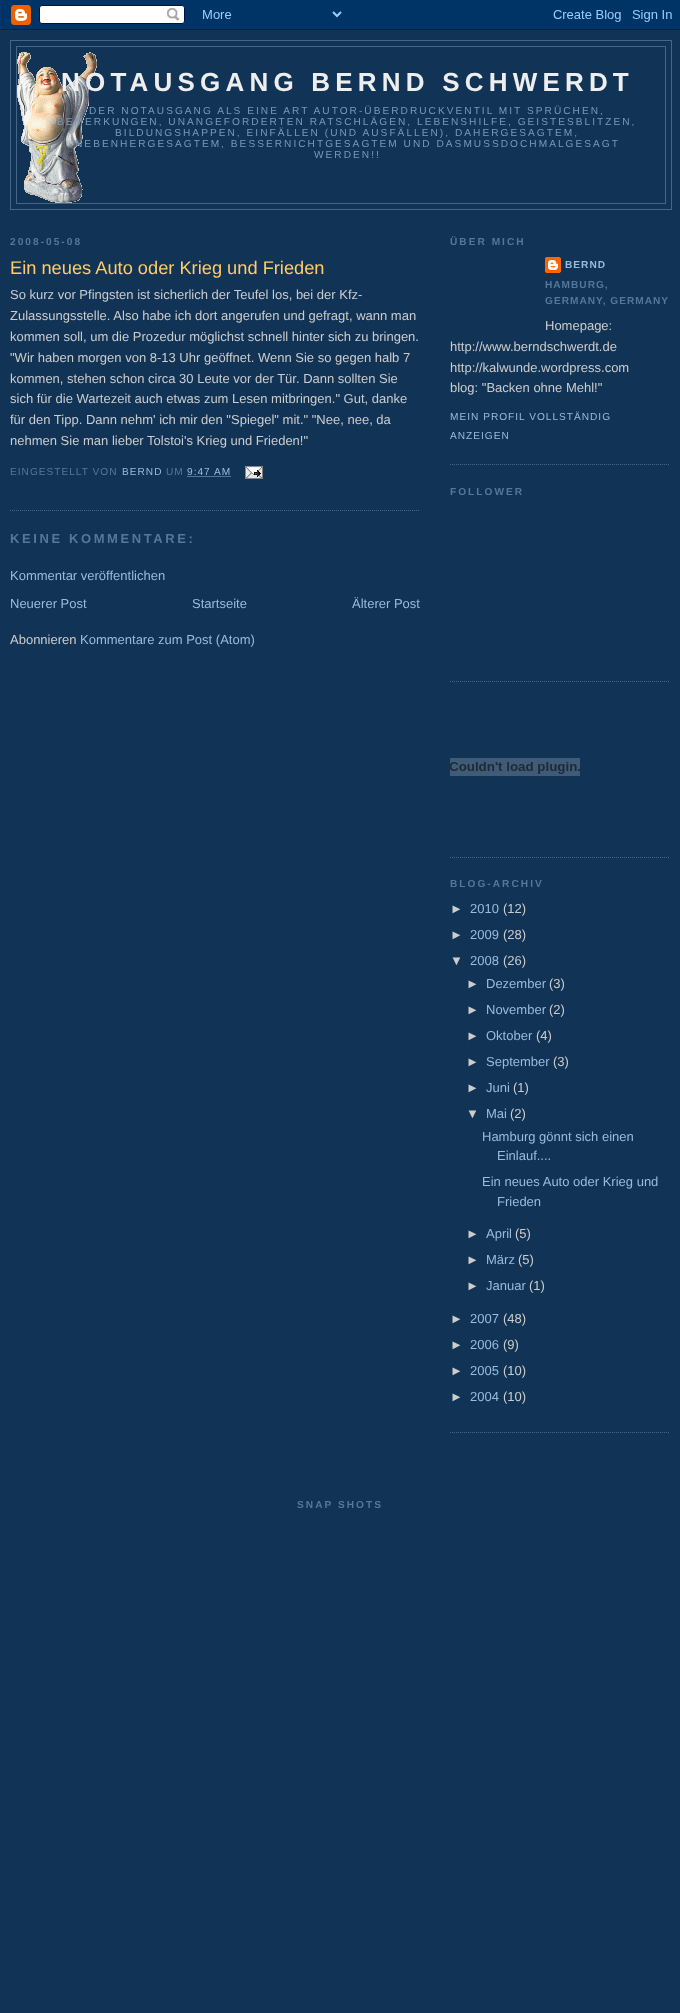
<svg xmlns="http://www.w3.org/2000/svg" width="680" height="2013">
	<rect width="100%" height="100%" fill="#113355" />
	<image x="0" y="0" width="680" height="30" href="assets/img1.png" />
	<rect x="10.5" y="40.5" width="661" height="169" fill="none" stroke="#446688" />
	<rect x="16.5" y="46.5" width="649" height="157" fill="none" stroke="#446688" />
	<image x="17" y="52" width="80" height="151" href="assets/img2.png" />
	<text x="61" y="91" font-family="Liberation Sans" font-size="26" font-weight="700" letter-spacing="5.2" fill="#EEEEEE">NOTAUSGANG BERND SCHWERDT</text>
	<g font-family="Liberation Sans" font-size="10.15" letter-spacing="2.03" fill="#7799BB">
		<text x="89" y="114">DER NOTAUSGANG ALS EINE ART AUTOR-ÜBERDRUCKVENTIL MIT SPRÜCHEN,</text>
		<text x="57" y="125">BEMERKUNGEN, UNANGEFORDERTEN RATSCHLÄGEN, LEBENSHILFE, GEISTESBLITZEN,</text>
		<text x="115" y="136">BILDUNGSHAPPEN, EINFÄLLEN (UND AUSFÄLLEN), DAHERGESAGTEM,</text>
		<text x="75" y="147">NEBENHERGESAGTEM, BESSERNICHTGESAGTEM UND DASMUSSDOCHMALGESAGT</text>
		<text x="314" y="158">WERDEN!!</text>
	</g>
	<text x="10" y="245" font-family="Liberation Sans" font-size="10.15" font-weight="700" letter-spacing="2.03" fill="#557799">2008-05-08</text>
	<path d="M10 510.5H420" fill="none" stroke="#446688" stroke-dasharray="1 1" />
	<text x="10" y="274" font-family="Liberation Sans" font-size="18.25" fill="#FFCC66">Ein neues Auto oder Krieg und Frieden</text>
	<g font-family="Liberation Sans" font-size="13" fill="#CCCCCC">
		<text x="10" y="299">So kurz vor Pfingsten ist sicherlich der Teufel los, bei der Kfz-</text>
		<text x="10" y="320">Zulassungsstelle. Also habe ich dort angerufen und gefragt, wann man</text>
		<text x="10" y="341">kommen soll, um die Prozedur möglichst schnell hinter sich zu bringen.</text>
		<text x="10" y="362">"Wir haben morgen von 8-13 Uhr geöffnet. Wenn Sie so gegen halb 7</text>
		<text x="10" y="383">kommen, stehen schon circa 30 Leute vor der Tür. Dann sollten Sie</text>
		<text x="10" y="403">sich für die Wartezeit auch etwas zum Lesen mitbringen." Gut, danke</text>
		<text x="10" y="424">für den Tipp. Dann nehm' ich mir den "Spiegel" mit." "Nee, nee, da</text>
		<text x="10" y="445">nehmen Sie man lieber Tolstoi's Krieg und Frieden!"</text>
	</g>
	<text x="10" y="475" font-family="Liberation Sans" font-size="10.15" letter-spacing="1" fill="#557799">EINGESTELLT VON</text>
	<text x="122" y="475" font-family="Liberation Sans" font-size="10.15" letter-spacing="1" fill="#99BBDD">BERND</text>
	<text x="166" y="475" font-family="Liberation Sans" font-size="10.15" letter-spacing="1" fill="#557799">UM</text>
	<text x="187" y="475" font-family="Liberation Sans" font-size="10.15" letter-spacing="1" fill="#99BBDD">9:47 AM</text>
	<path d="M187.5 476.5H231.5" fill="none" stroke="#99BBDD" stroke-dasharray="1 1" />
	<image x="245" y="466" width="18" height="13" href="assets/img3.png" />
	<text x="10" y="543" font-family="Liberation Sans" font-size="13" font-weight="700" letter-spacing="2.6" fill="#557799">KEINE KOMMENTARE:</text>
	<g font-family="Liberation Sans" font-size="13" fill="#99BBDD">
		<text x="10" y="580">Kommentar veröffentlichen</text>
		<text x="10" y="608">Neuerer Post</text>
		<text x="192" y="608">Startseite</text>
		<text x="352" y="608">Älterer Post</text>
	</g>
	<text x="10" y="644" font-family="Liberation Sans" font-size="13" fill="#CCCCCC">Abonnieren</text>
	<text x="80" y="644" font-family="Liberation Sans" font-size="13" fill="#99BBDD">Kommentare zum Post (Atom)</text>
	<path d="M450 464.5H670" fill="none" stroke="#446688" stroke-dasharray="1 1" />
	<text x="450" y="245" font-family="Liberation Sans" font-size="10.15" font-weight="700" letter-spacing="2.03" fill="#557799">ÜBER MICH</text>
	<image x="545" y="257" width="16" height="16" href="assets/img4.png" />
	<text x="565" y="268" font-family="Liberation Sans" font-size="10.15" font-weight="700" letter-spacing="1" fill="#99BBDD">BERND</text>
	<g font-family="Liberation Sans" font-size="10.15" font-weight="700" letter-spacing="1" fill="#557799">
		<text x="545" y="288">HAMBURG,</text>
		<text x="545" y="304">GERMANY, GERMANY</text>
	</g>
	<g font-family="Liberation Sans" font-size="13" fill="#CCCCCC">
		<text x="545" y="330">Homepage:</text>
		<text x="450" y="351">http://www.berndschwerdt.de</text>
		<text x="450" y="372">http://kalwunde.wordpress.com</text>
		<text x="450" y="392">blog: "Backen ohne Mehl!"</text>
	</g>
	<g font-family="Liberation Sans" font-size="10.15" letter-spacing="1" fill="#99BBDD">
		<text x="450" y="420">MEIN PROFIL VOLLSTÄNDIG</text>
		<text x="450" y="439">ANZEIGEN</text>
	</g>
	<path d="M450 681.5H670" fill="none" stroke="#446688" stroke-dasharray="1 1" />
	<text x="450" y="495" font-family="Liberation Sans" font-size="10.15" font-weight="700" letter-spacing="2.03" fill="#557799">FOLLOWER</text>
	<path d="M450 857.5H670" fill="none" stroke="#446688" stroke-dasharray="1 1" />
	<image x="450" y="758" width="130" height="18" href="assets/img5.png" />
	<path d="M450 1432.5H670" fill="none" stroke="#446688" stroke-dasharray="1 1" />
	<text x="450" y="887" font-family="Liberation Sans" font-size="10.15" font-weight="700" letter-spacing="2.03" fill="#557799">BLOG-ARCHIV</text>
	<text x="450" y="913" font-family="Liberation Sans" font-size="13" fill="#CCCCCC">►</text>
	<text x="470" y="913" font-family="Liberation Sans" font-size="13" fill="#99BBDD">2010</text>
	<g font-family="Liberation Sans" font-size="13" fill="#CCCCCC">
		<text x="503" y="913">(12)</text>
		<text x="450" y="939">►</text>
	</g>
	<text x="470" y="939" font-family="Liberation Sans" font-size="13" fill="#99BBDD">2009</text>
	<g font-family="Liberation Sans" font-size="13" fill="#CCCCCC">
		<text x="503" y="939">(28)</text>
		<text x="450" y="965">▼</text>
	</g>
	<text x="470" y="965" font-family="Liberation Sans" font-size="13" fill="#99BBDD">2008</text>
	<g font-family="Liberation Sans" font-size="13" fill="#CCCCCC">
		<text x="503" y="965">(26)</text>
		<text x="466" y="988">►</text>
	</g>
	<text x="486" y="988" font-family="Liberation Sans" font-size="13" fill="#99BBDD">Dezember</text>
	<g font-family="Liberation Sans" font-size="13" fill="#CCCCCC">
		<text x="549" y="988">(3)</text>
		<text x="466" y="1014">►</text>
	</g>
	<text x="486" y="1014" font-family="Liberation Sans" font-size="13" fill="#99BBDD">November</text>
	<g font-family="Liberation Sans" font-size="13" fill="#CCCCCC">
		<text x="549" y="1014">(2)</text>
		<text x="466" y="1040">►</text>
	</g>
	<text x="486" y="1040" font-family="Liberation Sans" font-size="13" fill="#99BBDD">Oktober</text>
	<g font-family="Liberation Sans" font-size="13" fill="#CCCCCC">
		<text x="536" y="1040">(4)</text>
		<text x="466" y="1066">►</text>
	</g>
	<text x="486" y="1066" font-family="Liberation Sans" font-size="13" fill="#99BBDD">September</text>
	<g font-family="Liberation Sans" font-size="13" fill="#CCCCCC">
		<text x="553" y="1066">(3)</text>
		<text x="466" y="1092">►</text>
	</g>
	<text x="486" y="1092" font-family="Liberation Sans" font-size="13" fill="#99BBDD">Juni</text>
	<g font-family="Liberation Sans" font-size="13" fill="#CCCCCC">
		<text x="513" y="1092">(1)</text>
		<text x="466" y="1118">▼</text>
	</g>
	<text x="486" y="1118" font-family="Liberation Sans" font-size="13" fill="#99BBDD">Mai</text>
	<text x="510" y="1118" font-family="Liberation Sans" font-size="13" fill="#CCCCCC">(2)</text>
	<g font-family="Liberation Sans" font-size="13" fill="#99BBDD">
		<text x="482" y="1141">Hamburg gönnt sich einen</text>
		<text x="497" y="1160">Einlauf....</text>
		<text x="482" y="1186">Ein neues Auto oder Krieg und</text>
		<text x="497" y="1206">Frieden</text>
	</g>
	<text x="466" y="1238" font-family="Liberation Sans" font-size="13" fill="#CCCCCC">►</text>
	<text x="486" y="1238" font-family="Liberation Sans" font-size="13" fill="#99BBDD">April</text>
	<g font-family="Liberation Sans" font-size="13" fill="#CCCCCC">
		<text x="515" y="1238">(5)</text>
		<text x="466" y="1264">►</text>
	</g>
	<text x="486" y="1264" font-family="Liberation Sans" font-size="13" fill="#99BBDD">März</text>
	<g font-family="Liberation Sans" font-size="13" fill="#CCCCCC">
		<text x="518" y="1264">(5)</text>
		<text x="466" y="1290">►</text>
	</g>
	<text x="486" y="1290" font-family="Liberation Sans" font-size="13" fill="#99BBDD">Januar</text>
	<g font-family="Liberation Sans" font-size="13" fill="#CCCCCC">
		<text x="529" y="1290">(1)</text>
		<text x="450" y="1323">►</text>
	</g>
	<text x="470" y="1323" font-family="Liberation Sans" font-size="13" fill="#99BBDD">2007</text>
	<g font-family="Liberation Sans" font-size="13" fill="#CCCCCC">
		<text x="503" y="1323">(48)</text>
		<text x="450" y="1349">►</text>
	</g>
	<text x="470" y="1349" font-family="Liberation Sans" font-size="13" fill="#99BBDD">2006</text>
	<g font-family="Liberation Sans" font-size="13" fill="#CCCCCC">
		<text x="503" y="1349">(9)</text>
		<text x="450" y="1375">►</text>
	</g>
	<text x="470" y="1375" font-family="Liberation Sans" font-size="13" fill="#99BBDD">2005</text>
	<g font-family="Liberation Sans" font-size="13" fill="#CCCCCC">
		<text x="503" y="1375">(10)</text>
		<text x="450" y="1401">►</text>
	</g>
	<text x="470" y="1401" font-family="Liberation Sans" font-size="13" fill="#99BBDD">2004</text>
	<text x="503" y="1401" font-family="Liberation Sans" font-size="13" fill="#CCCCCC">(10)</text>
	<text x="297" y="1508" font-family="Liberation Sans" font-size="10.15" font-weight="700" letter-spacing="2.03" fill="#557799">SNAP SHOTS</text>
</svg>
